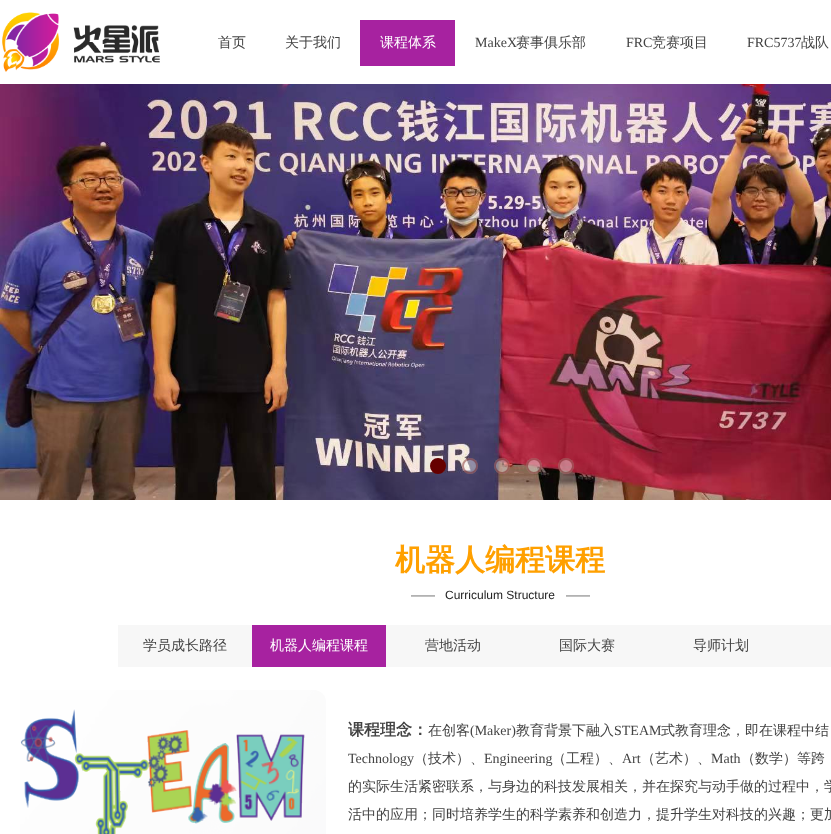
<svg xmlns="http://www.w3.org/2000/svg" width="831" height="834">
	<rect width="100%" height="100%" fill="#FFFFFF" />
	<image x="2" y="12" width="158" height="60" href="assets/img1.png" />
	<g font-family="WenQuanYi Zen Hei" font-size="14" font-weight="500" fill="#434343">
		<text x="218" y="47">首页</text>
		<text x="285" y="47">关于我们</text>
	</g>
	<rect x="360" y="20" width="95" height="46" fill="#A722A0" />
	<text x="380" y="47" font-family="WenQuanYi Zen Hei" font-size="14" font-weight="500" fill="#FFFFFF">课程体系</text>
	<text x="475" y="47" font-family="Liberation Serif" font-size="14" fill="#434343">MakeX</text>
	<text x="516" y="47" font-family="WenQuanYi Zen Hei" font-size="14" font-weight="500" fill="#434343">赛事俱乐部</text>
	<text x="626" y="47" font-family="Liberation Serif" font-size="14" fill="#434343">FRC</text>
	<text x="652" y="47" font-family="WenQuanYi Zen Hei" font-size="14" font-weight="500" fill="#434343">竞赛项目</text>
	<text x="747" y="47" font-family="Liberation Serif" font-size="14" fill="#434343">FRC5737</text>
	<text x="801" y="47" font-family="WenQuanYi Zen Hei" font-size="14" font-weight="500" fill="#434343">战队</text>
	<image x="0" y="84" width="831" height="416" href="assets/img2.png" />
	<circle cx="438" cy="466" r="7" fill="#660000" stroke="#660000" stroke-width="2" />
	<circle cx="470" cy="466" r="8" fill="#FFFFFF" fill-opacity="0.4" />
	<circle cx="470" cy="466" r="7" fill="none" stroke="#660000" stroke-opacity="0.4" stroke-width="2" />
	<circle cx="502" cy="466" r="8" fill="#FFFFFF" fill-opacity="0.4" />
	<circle cx="502" cy="466" r="7" fill="none" stroke="#660000" stroke-opacity="0.4" stroke-width="2" />
	<circle cx="534" cy="466" r="8" fill="#FFFFFF" fill-opacity="0.4" />
	<circle cx="534" cy="466" r="7" fill="none" stroke="#660000" stroke-opacity="0.4" stroke-width="2" />
	<circle cx="566" cy="466" r="8" fill="#FFFFFF" fill-opacity="0.4" />
	<circle cx="566" cy="466" r="7" fill="none" stroke="#660000" stroke-opacity="0.4" stroke-width="2" />
	<text x="395" y="570" font-family="WenQuanYi Zen Hei" font-size="30" font-weight="700" fill="#FFA000">机器人编程课程</text>
	<text x="411" y="599" font-family="Liberation Sans" font-size="12" fill="#5A5A5A">——</text>
	<text x="445" y="599" font-family="Liberation Sans" font-size="12" fill="#222222">Curriculum Structure</text>
	<text x="566" y="599" font-family="Liberation Sans" font-size="12" fill="#5A5A5A">——</text>
	<rect x="118" y="625" width="134" height="42" fill="#F7F7F7" />
	<text x="143" y="650" font-family="WenQuanYi Zen Hei" font-size="14" font-weight="500" fill="#434343">学员成长路径</text>
	<rect x="252" y="625" width="134" height="42" fill="#A722A0" />
	<text x="270" y="650" font-family="WenQuanYi Zen Hei" font-size="14" font-weight="500" fill="#FFFFFF">机器人编程课程</text>
	<rect x="386" y="625" width="445" height="42" fill="#F7F7F7" />
	<g font-family="WenQuanYi Zen Hei" font-size="14" font-weight="500" fill="#434343">
		<text x="425" y="650">营地活动</text>
		<text x="559" y="650">国际大赛</text>
		<text x="693" y="650">导师计划</text>
	</g>
	<image x="20" y="690" width="306" height="144" href="assets/img3.png" />
	<text x="348" y="735" font-family="WenQuanYi Zen Hei" font-size="16" font-weight="700" fill="#434343">课程理念：</text>
	<text x="428" y="735" font-family="WenQuanYi Zen Hei" font-size="14" font-weight="500" fill="#434343">在创客</text>
	<text x="470" y="735" font-family="Liberation Serif" font-size="14" fill="#434343">(Maker)</text>
	<text x="516" y="735" font-family="WenQuanYi Zen Hei" font-size="14" font-weight="500" fill="#434343">教育背景下融入</text>
	<text x="614" y="735" font-family="Liberation Serif" font-size="14" fill="#434343">STEAM</text>
	<text x="661" y="735" font-family="WenQuanYi Zen Hei" font-size="14" font-weight="500" fill="#434343">式教育理念，即在课程中结</text>
	<text x="348" y="763" font-family="Liberation Serif" font-size="14" fill="#434343">Technology</text>
	<text x="414" y="763" font-family="WenQuanYi Zen Hei" font-size="14" font-weight="500" fill="#434343">（技术）、</text>
	<text x="484" y="763" font-family="Liberation Serif" font-size="14" fill="#434343">Engineering</text>
	<text x="552" y="763" font-family="WenQuanYi Zen Hei" font-size="14" font-weight="500" fill="#434343">（工程）、</text>
	<text x="622" y="763" font-family="Liberation Serif" font-size="14" fill="#434343">Art</text>
	<text x="641" y="763" font-family="WenQuanYi Zen Hei" font-size="14" font-weight="500" fill="#434343">（艺术）、</text>
	<text x="711" y="763" font-family="Liberation Serif" font-size="14" fill="#434343">Math</text>
	<g font-family="WenQuanYi Zen Hei" font-size="14" font-weight="500" fill="#434343">
		<text x="741" y="763">（数学）等跨</text>
		<text x="348" y="791">的实际生活紧密联系，与身边的科技发展相关，并在探究与动手做的过程中，学</text>
		<text x="348" y="819">活中的应用；同时培养学生的科学素养和创造力，提升学生对科技的兴趣；更加</text>
	</g>
</svg>
